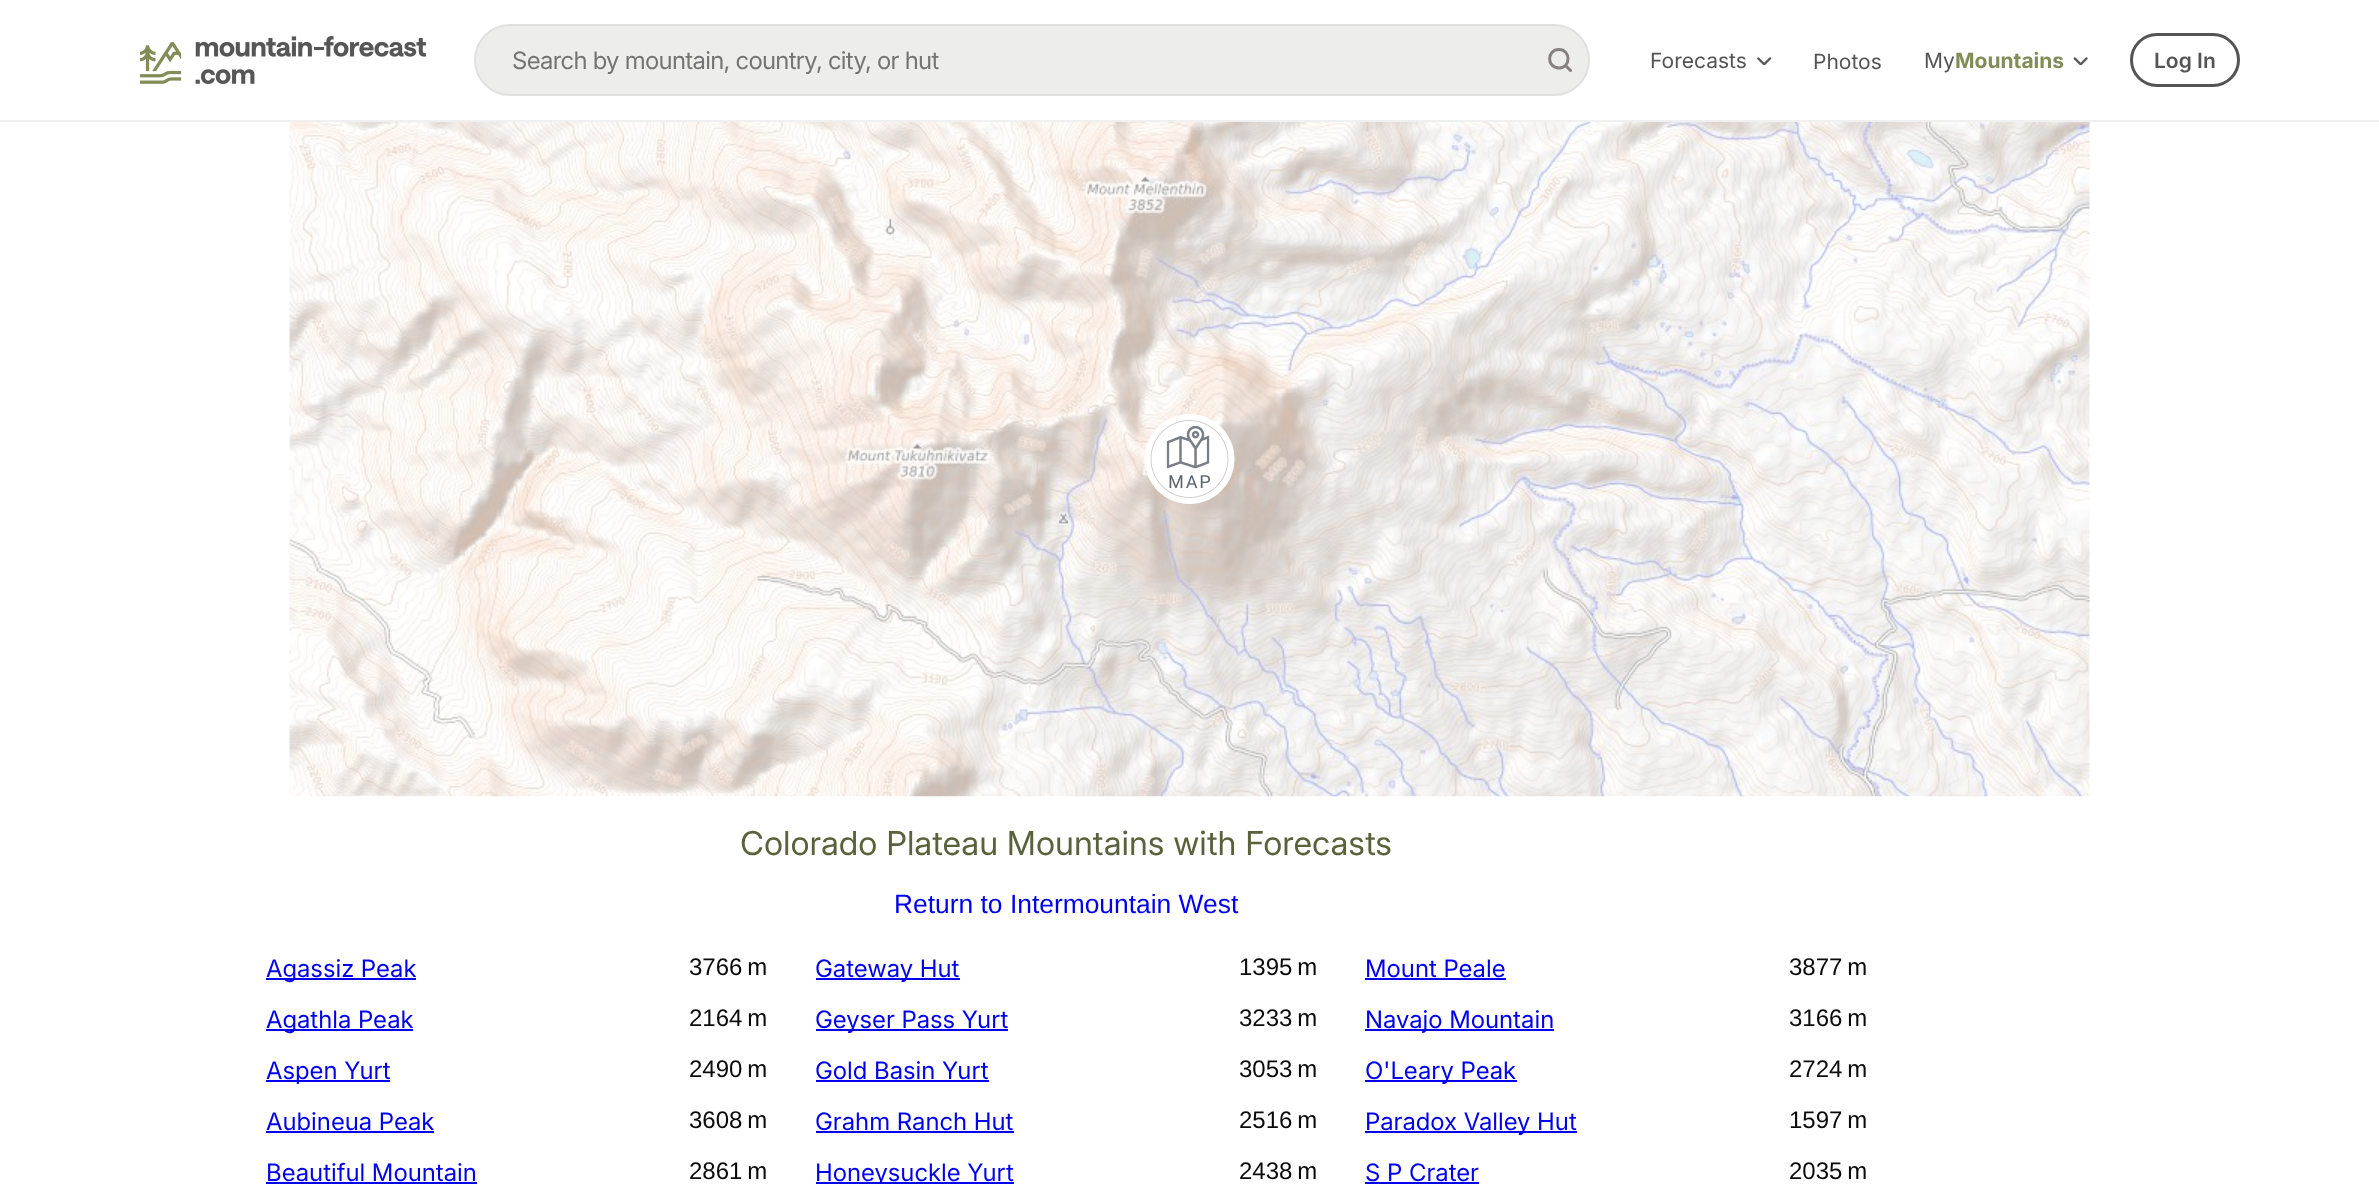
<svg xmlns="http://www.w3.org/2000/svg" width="2379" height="1184">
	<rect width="100%" height="100%" fill="#FFFFFF" />
	<rect x="0" y="120" width="2379" height="2" fill="#F0F0F0" />
	<image x="140" y="36" width="286" height="48" href="assets/img1.png" />
	<rect x="475" y="25" width="1114" height="70" rx="35" fill="#EDEDEC" stroke="#E0E0E0" stroke-width="2" />
	<text x="512" y="69" font-family="'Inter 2'" font-size="24" letter-spacing="-0.7" fill="#747474">Search by mountain, country, city, or hut</text>
	<path d="M1559 68C1571 68 1571 49.5 1559 49.5C1546.5 49.5 1546.5 68 1559 68ZM1570.5 70.5L1565.5 65.5" fill="none" stroke="#878080" stroke-width="3" stroke-linecap="round" stroke-linejoin="round" />
	<text x="1650" y="68" font-family="'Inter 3'" font-size="21" fill="#545454">Forecasts</text>
	<image x="1757" y="57" width="15" height="8" href="assets/img2.png" />
	<g font-family="'Inter 3'" font-size="21" fill="#545454">
		<text x="1813" y="69">Photos</text>
		<text x="1924" y="68">My</text>
	</g>
	<text x="1955" y="68" font-family="Inter" font-size="21" font-weight="700" fill="#818C56">Mountains</text>
	<image x="2073" y="57" width="15" height="8" href="assets/img3.png" />
	<rect x="2131.5" y="34.5" width="107" height="51" rx="25.5" fill="none" stroke="#545454" stroke-width="3" />
	<text x="2154" y="68" font-family="Inter" font-size="21" font-weight="600" fill="#545454">Log In</text>
	<image x="289" y="122" width="1801" height="675" href="assets/img4.png" />
	<image x="1145" y="414" width="90" height="90" href="assets/img5.png" />
	<text x="740" y="855" font-family="Inter" font-size="33" fill="#5A623C">Colorado Plateau Mountains with Forecasts</text>
	<text x="894" y="913" font-family="Liberation Sans" font-size="26.4" fill="#0000EE">Return to Intermountain West</text>
	<rect x="266" y="978" width="150" height="2" fill="#0000EE" />
	<text x="266" y="977" font-family="'Inter 2'" font-size="24" fill="#0000EE">Agassiz Peak</text>
	<text x="689" y="975" font-family="Liberation Sans" font-size="24" fill="#0A0A0A">3766 m</text>
	<rect x="816" y="978" width="144" height="2" fill="#0000EE" />
	<text x="815" y="977" font-family="'Inter 2'" font-size="24" fill="#0000EE">Gateway Hut</text>
	<text x="1239" y="975" font-family="Liberation Sans" font-size="24" fill="#0A0A0A">1395 m</text>
	<text x="1365" y="977" font-family="'Inter 2'" font-size="24" fill="#0000EE">Mount Peale</text>
	<rect x="1365" y="978" width="141" height="2" fill="#0000EE" />
	<text x="1789" y="975" font-family="Liberation Sans" font-size="24" fill="#0A0A0A">3877 m</text>
	<rect x="266" y="1029" width="147" height="2" fill="#0000EE" />
	<text x="266" y="1028" font-family="'Inter 2'" font-size="24" fill="#0000EE">Agathla Peak</text>
	<text x="689" y="1026" font-family="Liberation Sans" font-size="24" fill="#0A0A0A">2164 m</text>
	<rect x="816" y="1029" width="192" height="2" fill="#0000EE" />
	<text x="815" y="1028" font-family="'Inter 2'" font-size="24" fill="#0000EE">Geyser Pass Yurt</text>
	<text x="1239" y="1026" font-family="Liberation Sans" font-size="24" fill="#0A0A0A">3233 m</text>
	<rect x="1365" y="1029" width="189" height="2" fill="#0000EE" />
	<text x="1365" y="1028" font-family="'Inter 2'" font-size="24" fill="#0000EE">Navajo Mountain</text>
	<text x="1789" y="1026" font-family="Liberation Sans" font-size="24" fill="#0A0A0A">3166 m</text>
	<rect x="266" y="1080" width="124" height="2" fill="#0000EE" />
	<text x="266" y="1079" font-family="'Inter 2'" font-size="24" fill="#0000EE">Aspen Yurt</text>
	<text x="689" y="1077" font-family="Liberation Sans" font-size="24" fill="#0A0A0A">2490 m</text>
	<text x="815" y="1079" font-family="'Inter 2'" font-size="24" fill="#0000EE">Gold Basin Yurt</text>
	<rect x="816" y="1080" width="173" height="2" fill="#0000EE" />
	<text x="1239" y="1077" font-family="Liberation Sans" font-size="24" fill="#0A0A0A">3053 m</text>
	<rect x="1365" y="1080" width="152" height="2" fill="#0000EE" />
	<text x="1365" y="1079" font-family="'Inter 2'" font-size="24" fill="#0000EE">O'Leary Peak</text>
	<text x="1789" y="1077" font-family="Liberation Sans" font-size="24" fill="#0A0A0A">2724 m</text>
	<text x="266" y="1130" font-family="'Inter 2'" font-size="24" fill="#0000EE">Aubineua Peak</text>
	<rect x="266" y="1131" width="168" height="2" fill="#0000EE" />
	<text x="689" y="1128" font-family="Liberation Sans" font-size="24" fill="#0A0A0A">3608 m</text>
	<text x="815" y="1130" font-family="'Inter 2'" font-size="24" fill="#0000EE">Grahm Ranch Hut</text>
	<rect x="816" y="1131" width="198" height="2" fill="#0000EE" />
	<text x="1239" y="1128" font-family="Liberation Sans" font-size="24" fill="#0A0A0A">2516 m</text>
	<rect x="1365" y="1131" width="212" height="2" fill="#0000EE" />
	<text x="1365" y="1130" font-family="'Inter 2'" font-size="24" fill="#0000EE">Paradox Valley Hut</text>
	<text x="1789" y="1128" font-family="Liberation Sans" font-size="24" fill="#0A0A0A">1597 m</text>
	<text x="266" y="1181" font-family="'Inter 2'" font-size="24" fill="#0000EE">Beautiful Mountain</text>
	<rect x="266" y="1182" width="211" height="2" fill="#0000EE" />
	<text x="689" y="1179" font-family="Liberation Sans" font-size="24" fill="#0A0A0A">2861 m</text>
	<rect x="816" y="1182" width="198" height="2" fill="#0000EE" />
	<text x="815" y="1181" font-family="'Inter 2'" font-size="24" fill="#0000EE">Honeysuckle Yurt</text>
	<text x="1239" y="1179" font-family="Liberation Sans" font-size="24" fill="#0A0A0A">2438 m</text>
	<text x="1365" y="1181" font-family="'Inter 2'" font-size="24" fill="#0000EE">S P Crater</text>
	<rect x="1365" y="1182" width="114" height="2" fill="#0000EE" />
	<text x="1789" y="1179" font-family="Liberation Sans" font-size="24" fill="#0A0A0A">2035 m</text>
</svg>
